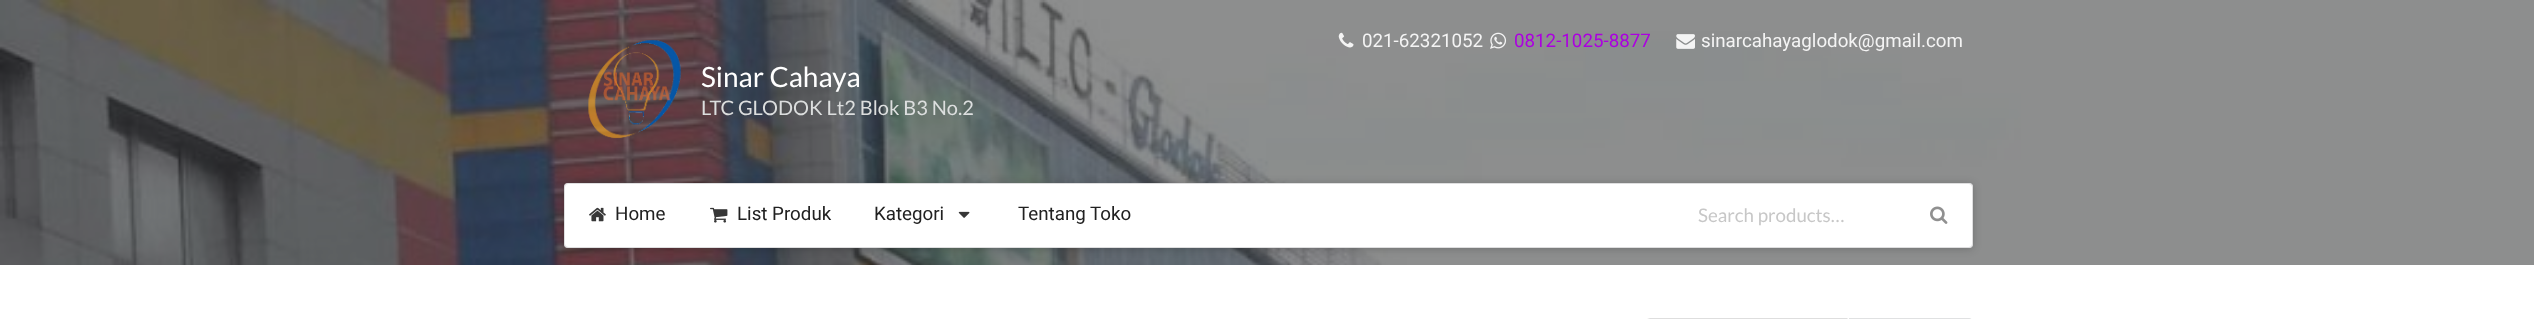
<svg xmlns="http://www.w3.org/2000/svg" width="2534" height="319">
	<rect width="100%" height="100%" fill="#FFFFFF" />
	<rect x="0" y="0" width="2534" height="265" fill="#1B1C1D" />
	<image x="0" y="0" width="2534" height="265" href="assets/img1.png" />
	<image x="1338" y="32" width="16" height="16" href="assets/img2.png" />
	<text x="1362" y="47" font-family="Roboto" font-size="18.75" fill="#F4F4F4">021-62321052</text>
	<image x="1490" y="32" width="17" height="17" href="assets/img3.png" />
	<text x="1514" y="47" font-family="Roboto" font-size="18.75" fill="#AC00E0">0812-1025-8877</text>
	<image x="1676" y="34" width="19" height="15" href="assets/img4.png" />
	<text x="1701" y="47" font-family="Roboto" font-size="18.75" fill="#F4F4F4">sinarcahayaglodok@gmail.com</text>
	<image x="588" y="40" width="93" height="99" href="assets/img5.png" />
	<text x="701" y="87" font-family="Lato" font-size="28" fill="#FFFFFF">Sinar Cahaya</text>
	<text x="701" y="115" font-family="Lato" font-size="20" fill="#DCDEDE">LTC GLODOK Lt2 Blok B3 No.2</text>
	<rect x="564" y="184" width="1409" height="65" rx="4" fill="#000000" fill-opacity="0.2" filter="blur(4px)" />
	<rect x="564" y="183" width="1409" height="65" rx="4" fill="#FFFFFF" />
	<rect x="564.5" y="183.5" width="1408" height="64" rx="3.5" fill="none" stroke="#222426" stroke-opacity="0.15" />
	<image x="589" y="207" width="17" height="15" href="assets/img6.png" />
	<text x="615" y="220" font-family="Roboto" font-size="18.75" fill="#212121">Home</text>
	<image x="710" y="207" width="18" height="16" href="assets/img7.png" />
	<g font-family="Roboto" font-size="18.75" fill="#212121">
		<text x="737" y="220">List Produk</text>
		<text x="874" y="220">Kategori</text>
	</g>
	<image x="958" y="211" width="12" height="7" href="assets/img8.png" />
	<text x="1018" y="220" font-family="Roboto" font-size="18.75" fill="#212121">Tentang Toko</text>
	<text x="1698" y="222" font-family="Lato" font-size="18.75" fill="#C7C7C7">Search products…</text>
	<image x="1930" y="206" width="18" height="18" href="assets/img9.png" />
	<path d="M1650 318L1647 319L1649 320L1650 319H1847L1848 318Z" fill="#DEDEDE" />
	<path d="M1849 318H1969C1971 318 1973 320 1973 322V319C1973 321 1971 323 1969 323H1849Z" fill="#E0E1E2" />
</svg>
